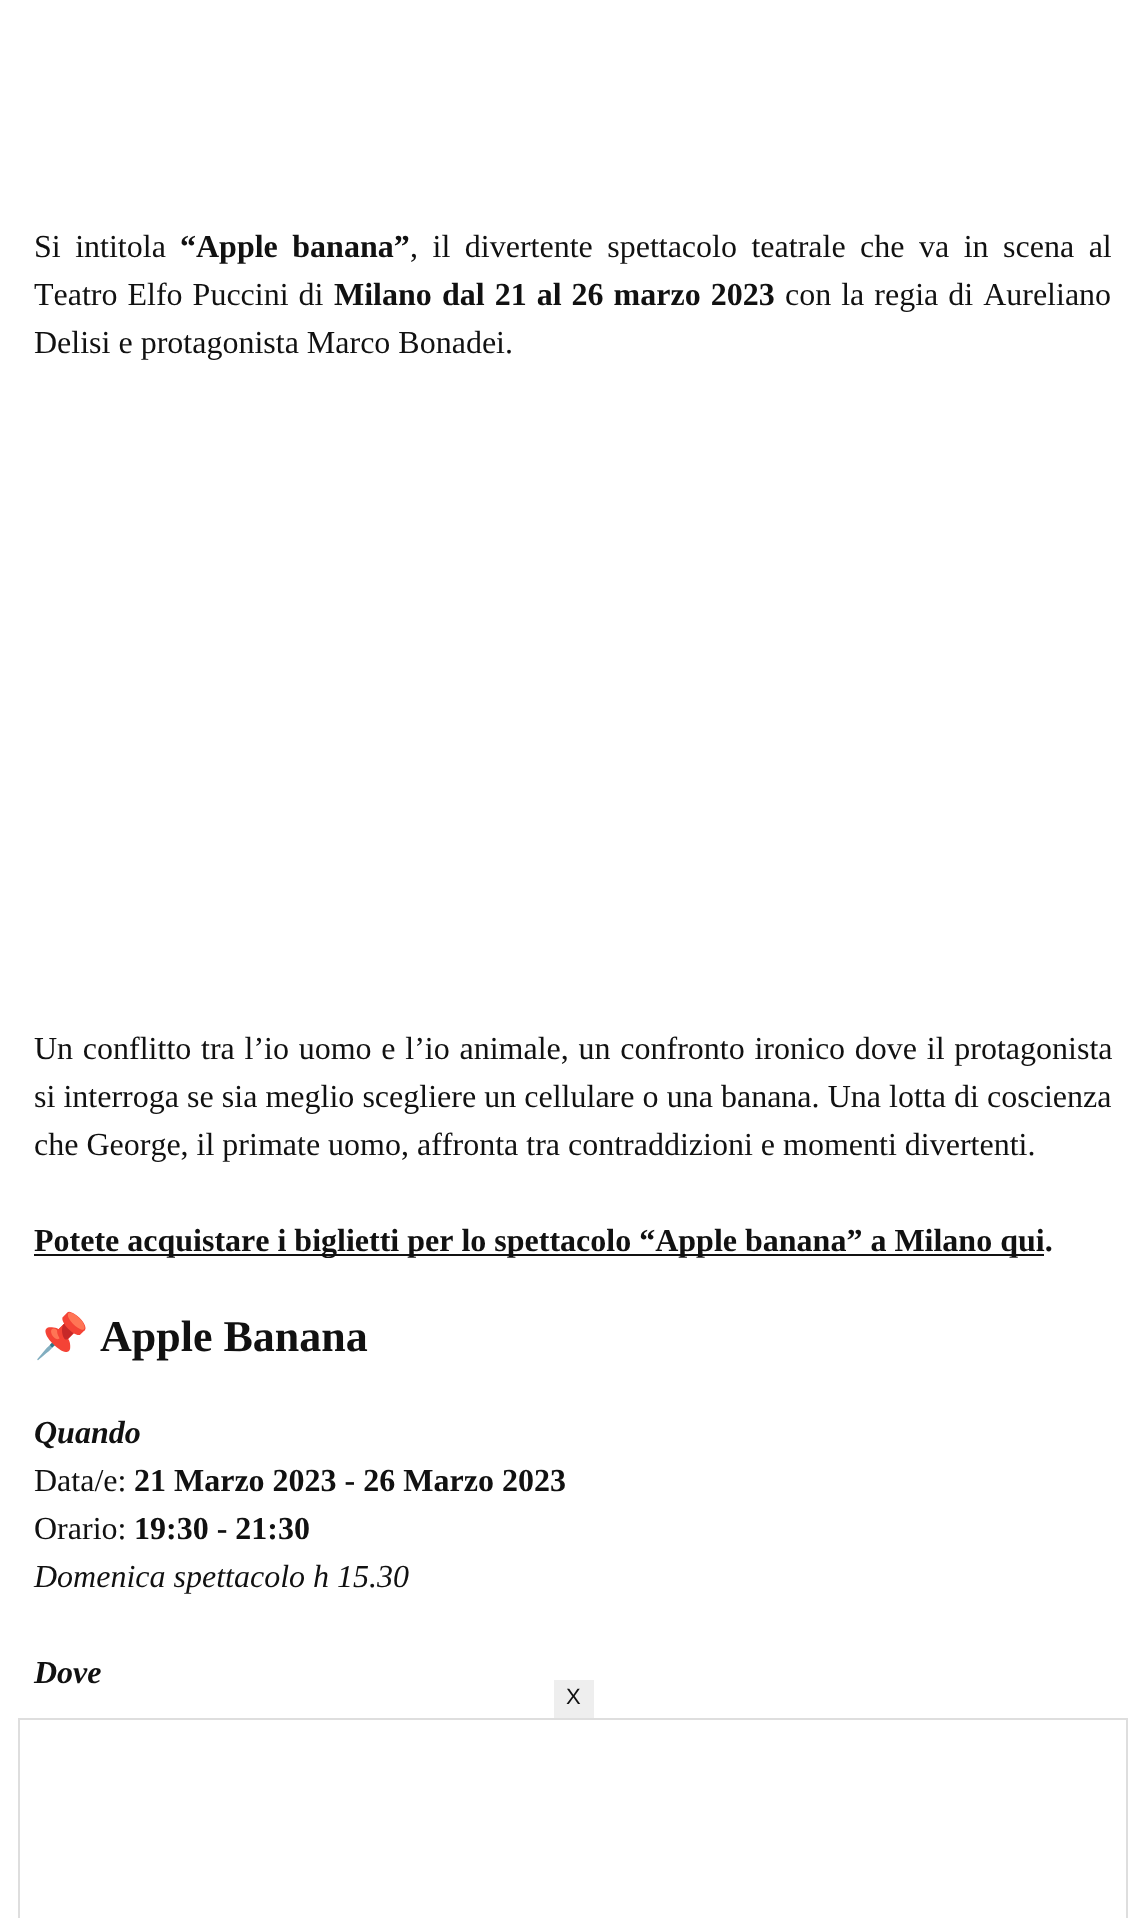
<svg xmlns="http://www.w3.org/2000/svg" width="1146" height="1918">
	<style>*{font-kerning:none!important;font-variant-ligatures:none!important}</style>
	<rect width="100%" height="100%" fill="#FFFFFF" />
	<text x="34" y="257" word-spacing="6.5" font-family="Liberation Serif" font-size="32" fill="#111111">Si intitola</text>
	<text x="180" y="257" word-spacing="6.5" font-family="Liberation Serif" font-size="32" font-weight="700" fill="#111111">“Apple banana”</text>
	<g font-family="Liberation Serif" font-size="32" fill="#111111">
		<text x="410" y="257" word-spacing="6.5">, il divertente spettacolo teatrale che va in scena al</text>
		<text x="34" y="305" word-spacing="2">Teatro Elfo Puccini di</text>
	</g>
	<g font-family="Liberation Serif" font-size="32" font-weight="700" fill="#111111">
		<text x="334" y="305">Milano</text>
		<text x="442" y="305" word-spacing="2">dal 21 al 26 marzo 2023</text>
	</g>
	<g font-family="Liberation Serif" font-size="32" fill="#111111">
		<text x="785" y="305" word-spacing="2">con la regia di Aureliano</text>
		<text x="34" y="353">Delisi e protagonista Marco Bonadei.</text>
		<text x="34" y="1059" word-spacing="1.75">Un conflitto tra l’io uomo e l’io animale, un confronto ironico dove il protagonista</text>
		<text x="34" y="1107" word-spacing="0.1">si interroga se sia meglio scegliere un cellulare o una banana. Una lotta di coscienza</text>
		<text x="34" y="1155">che George, il primate uomo, affronta tra contraddizioni e momenti divertenti.</text>
	</g>
	<rect x="34" y="1254" width="1010" height="2" fill="#111111" />
	<text x="34" y="1251" font-family="Liberation Serif" font-size="32" font-weight="700" fill="#111111">Potete acquistare i biglietti per lo spettacolo “Apple banana” a Milano qui.</text>
	<text x="34" y="1351" font-family="Noto Color Emoji" font-size="44" font-weight="700" fill="#111111">📌</text>
	<text x="100" y="1351" font-family="Liberation Serif" font-size="44" font-weight="700" fill="#111111">Apple Banana</text>
	<text x="34" y="1443" font-family="Liberation Serif" font-size="32" font-weight="700" font-style="italic" fill="#111111">Quando</text>
	<text x="34" y="1491" font-family="Liberation Serif" font-size="32" fill="#111111">Data/e:</text>
	<text x="134" y="1491" font-family="Liberation Serif" font-size="32" font-weight="700" fill="#111111">21 Marzo 2023 - 26 Marzo 2023</text>
	<text x="34" y="1539" font-family="Liberation Serif" font-size="32" fill="#111111">Orario:</text>
	<text x="134" y="1539" font-family="Liberation Serif" font-size="32" font-weight="700" fill="#111111">19:30 - 21:30</text>
	<text x="34" y="1587" font-family="Liberation Serif" font-size="32" font-style="italic" fill="#111111">Domenica spettacolo h 15.30</text>
	<text x="34" y="1683" font-family="Liberation Serif" font-size="32" font-weight="700" font-style="italic" fill="#111111">Dove</text>
	<rect x="554" y="1680" width="40" height="38" fill="#EEEEEE" />
	<text x="566" y="1704" font-family="Liberation Sans" font-size="22" fill="#111111">X</text>
	<rect x="18" y="1718" width="1110" height="2" fill="#DEDEDE" />
	<rect x="1126" y="1718" width="2" height="200" fill="#DEDEDE" />
	<rect x="18" y="1718" width="2" height="200" fill="#DEDEDE" />
</svg>
